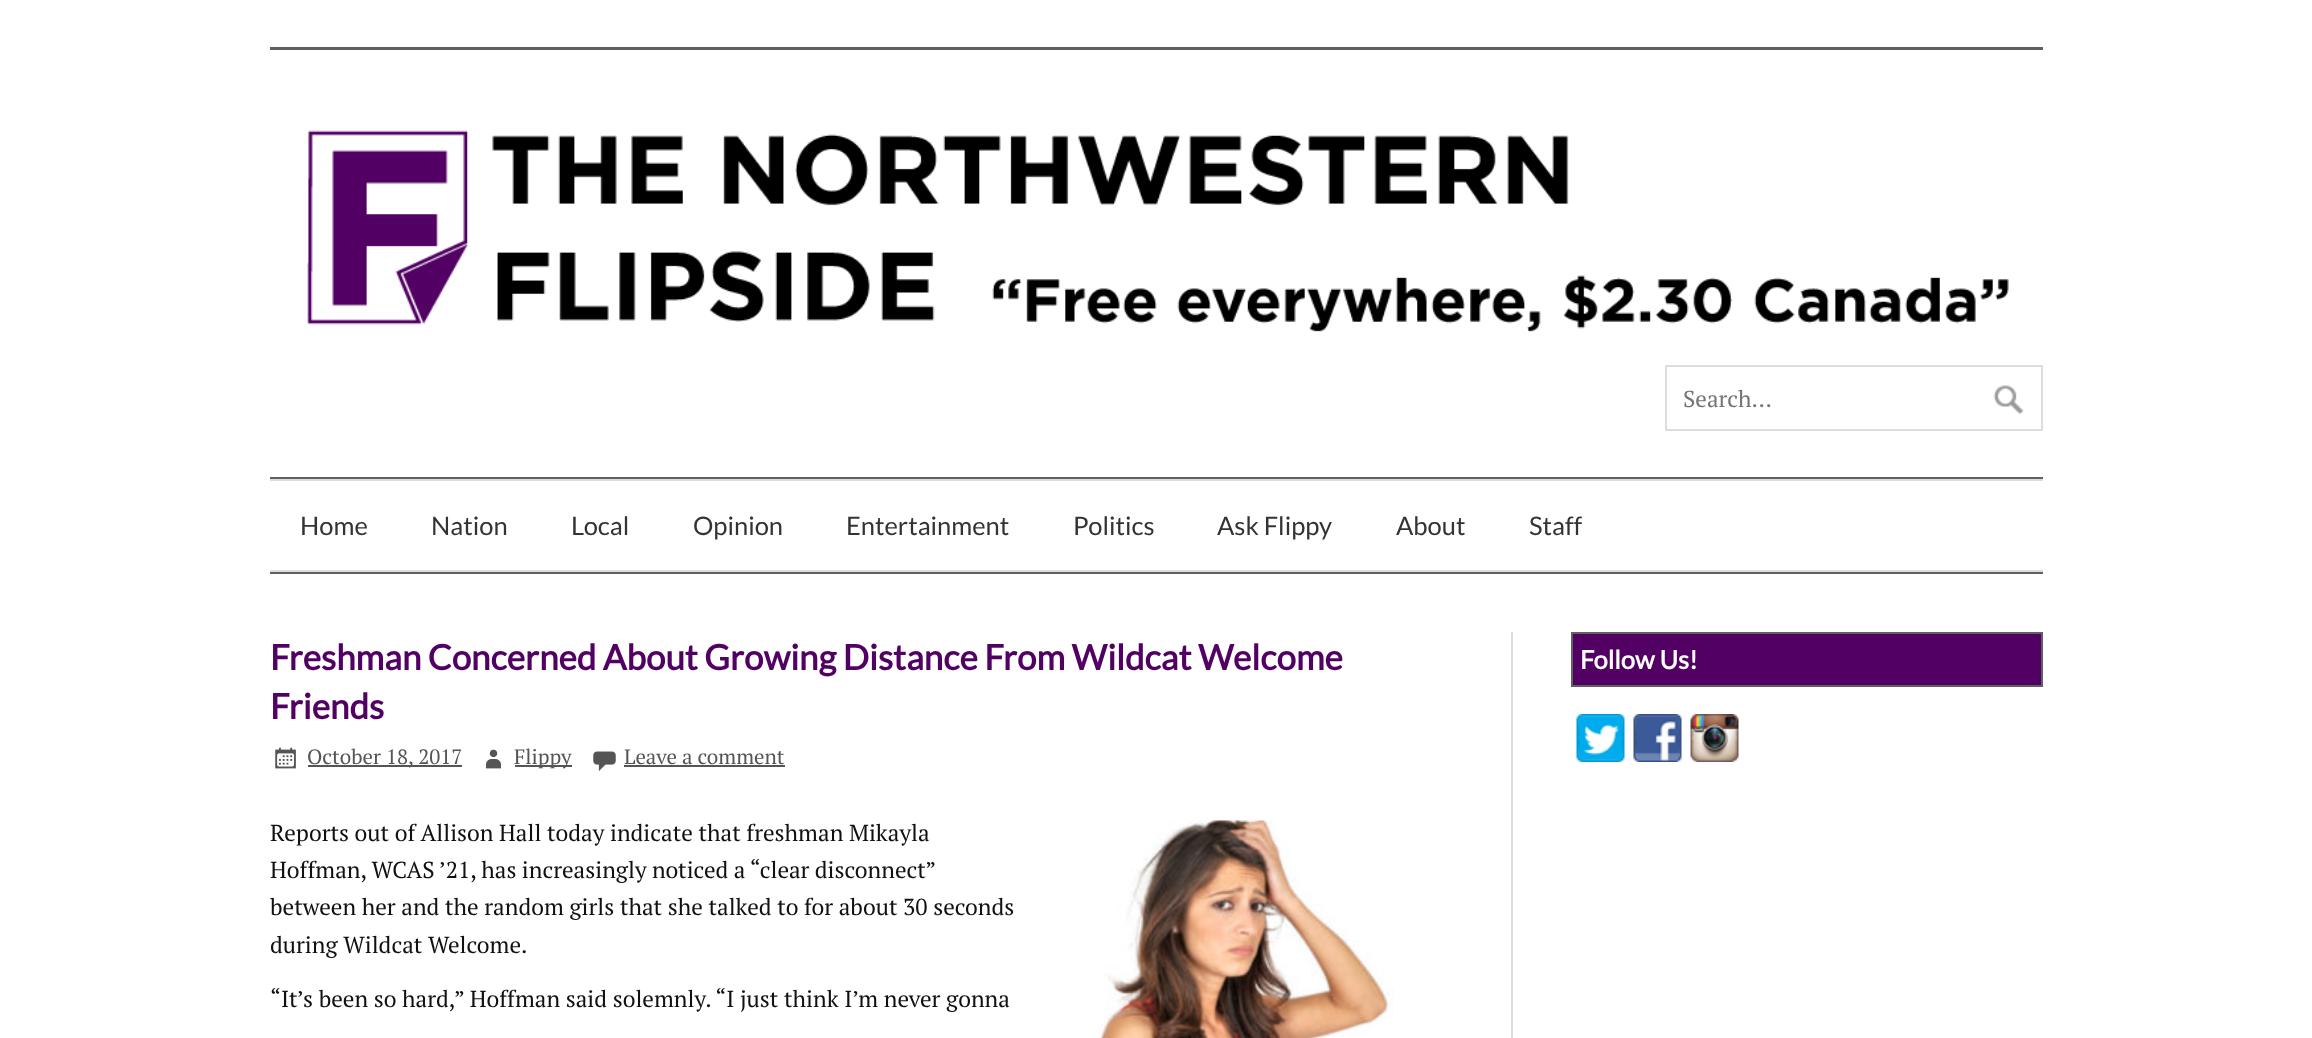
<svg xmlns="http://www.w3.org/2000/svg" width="2312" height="1038">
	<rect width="100%" height="100%" fill="#FFFFFF" />
	<rect x="270" y="47" width="1773" height="3" fill="#606060" />
	<image x="307" y="130" width="1702" height="202" href="assets/img1.png" />
	<rect x="1666" y="366" width="376" height="64" fill="none" stroke="#DDDDDD" stroke-width="2" />
	<text x="1683" y="407" font-family="PT Serif" font-size="23" fill="#757575">Search...</text>
	<image x="1993" y="385" width="31" height="30" href="assets/img2.png" />
	<rect x="270" y="477" width="1773" height="2" fill="#606060" />
	<rect x="270" y="572" width="1773" height="2" fill="#606060" />
	<rect x="270" y="479" width="1773" height="2" fill="#DDDDDD" />
	<rect x="270" y="570" width="1773" height="2" fill="#DDDDDD" />
	<g font-family="Lato" font-size="25.5" fill="#333333">
		<text x="300" y="535">Home</text>
		<text x="431" y="535">Nation</text>
		<text x="571" y="535">Local</text>
		<text x="693" y="535">Opinion</text>
		<text x="846" y="535">Entertainment</text>
		<text x="1073" y="535">Politics</text>
		<text x="1217" y="535">Ask Flippy</text>
		<text x="1396" y="535">About</text>
		<text x="1529" y="535">Staff</text>
	</g>
	<g font-family="Lato" font-size="34.9" font-weight="700" fill="#520063">
		<text x="270" y="670" word-spacing="-0.25">Freshman Concerned About Growing Distance From Wildcat Welcome</text>
		<text x="270" y="719">Friends</text>
	</g>
	<image x="275" y="747" width="21" height="22" href="assets/img3.png" />
	<rect x="308" y="765" width="154" height="2" fill="#555555" />
	<text x="307" y="764" font-family="PT Serif" font-size="20.75" fill="#555555">October 18, 2017</text>
	<image x="486" y="749" width="15" height="20" href="assets/img4.png" />
	<rect x="515" y="765" width="57" height="2" fill="#555555" />
	<text x="514" y="764" font-family="PT Serif" font-size="20.75" fill="#555555">Flippy</text>
	<image x="593" y="751" width="23" height="20" href="assets/img5.png" />
	<text x="624" y="764" font-family="PT Serif" font-size="20.75" fill="#555555">Leave a comment</text>
	<rect x="624" y="765" width="161" height="2" fill="#555555" />
	<g font-family="PT Serif" font-size="23.05" fill="#111111">
		<text x="270" y="841">Reports out of Allison Hall today indicate that freshman Mikayla</text>
		<text x="270" y="878" word-spacing="-0.25">Hoffman, WCAS ’21, has increasingly noticed a “clear disconnect”</text>
		<text x="270" y="915">between her and the random girls that she talked to for about 30 seconds</text>
		<text x="270" y="953">during Wildcat Welcome.</text>
		<text x="270" y="1007">“It’s been so hard,” Hoffman said solemnly. “I just think I’m never gonna</text>
	</g>
	<image x="1098" y="820" width="297" height="218" href="assets/img6.png" />
	<rect x="1511" y="632" width="2" height="406" fill="#DDDDDD" />
	<rect x="1572" y="633" width="470" height="53" fill="#520063" stroke="#606060" stroke-width="2" />
	<text x="1580" y="669" font-family="Lato" font-size="25.5" font-weight="700" fill="#FFFFFF">Follow Us!</text>
	<image x="1576" y="714" width="49" height="48" href="assets/img7.png" />
	<image x="1633" y="714" width="49" height="48" href="assets/img8.png" />
	<image x="1690" y="714" width="49" height="48" href="assets/img9.png" />
</svg>
